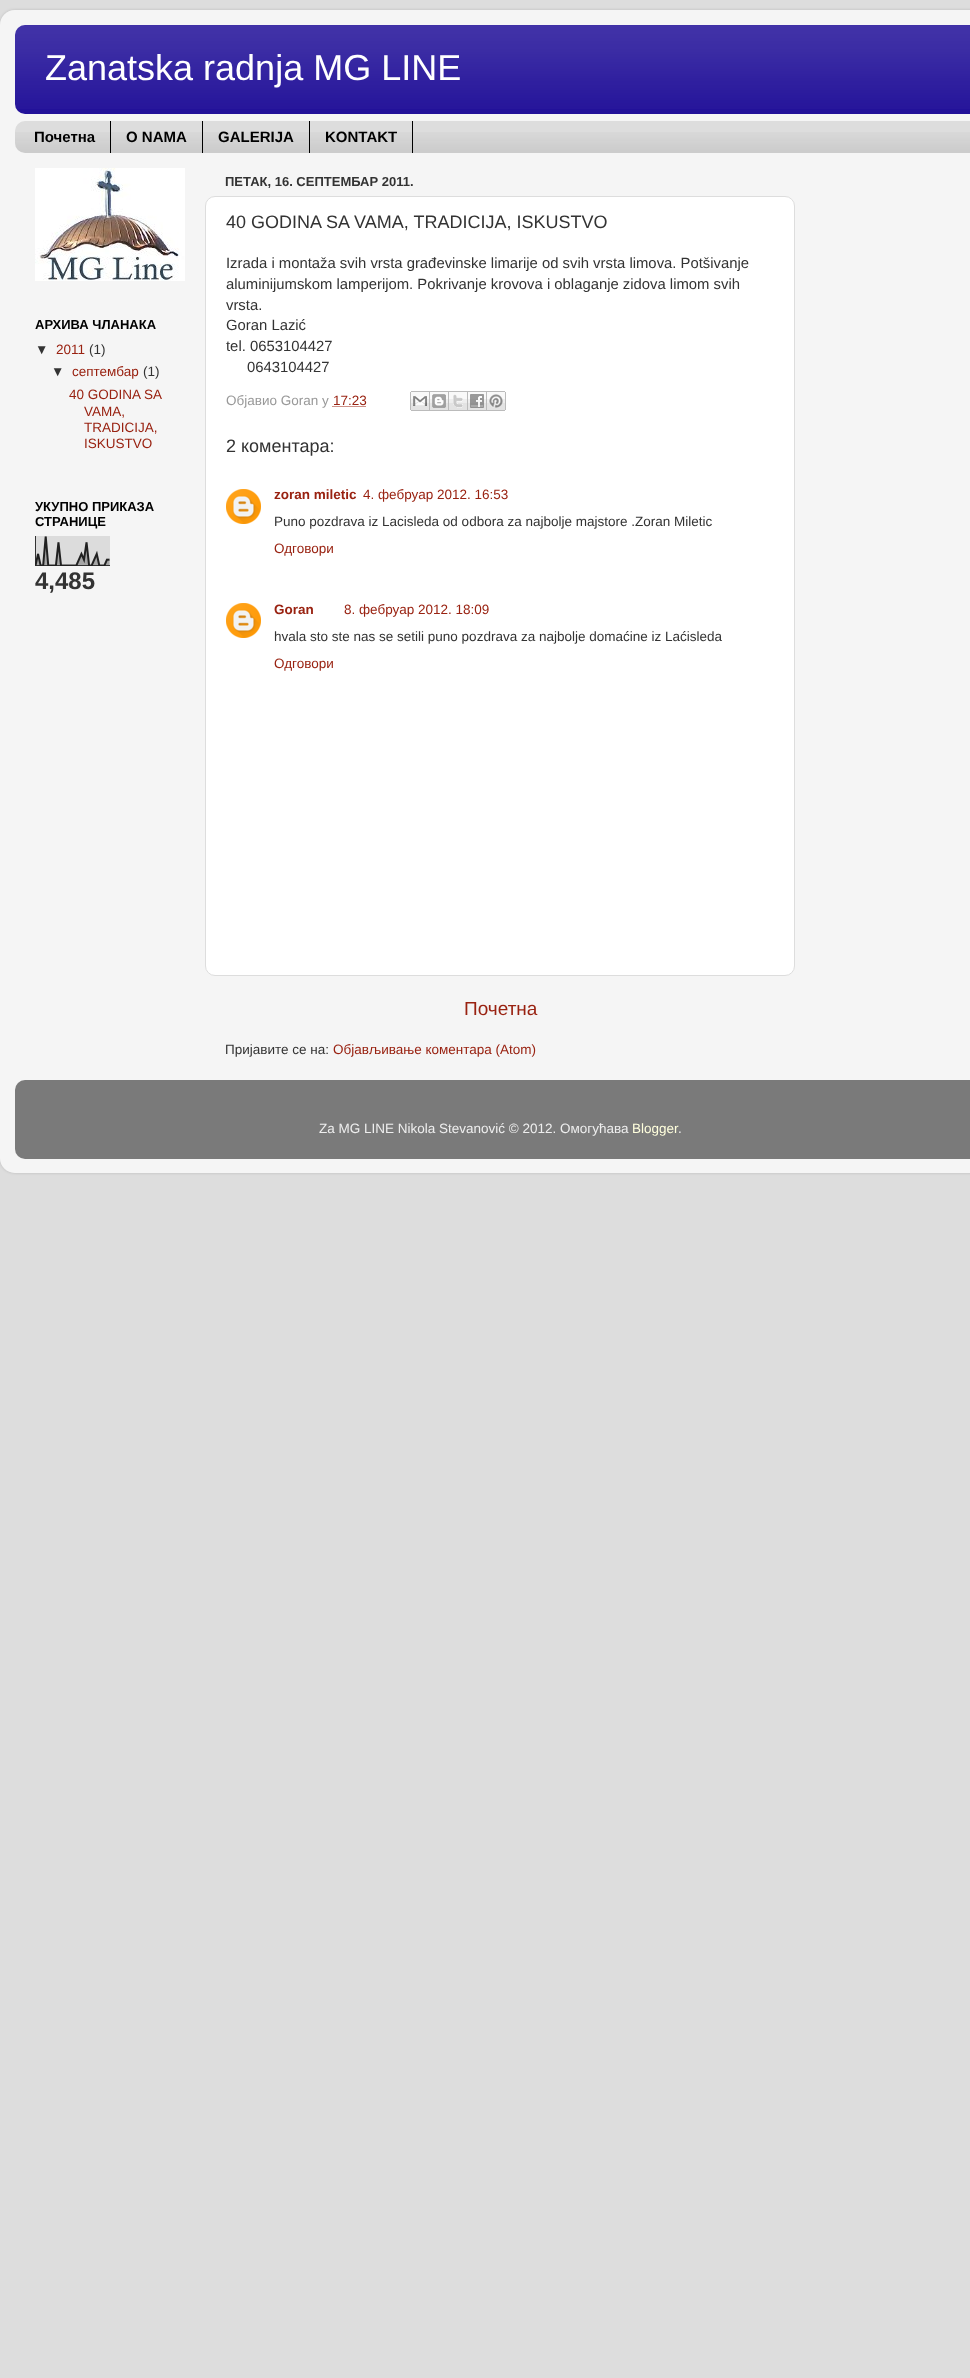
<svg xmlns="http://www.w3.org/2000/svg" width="970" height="2378">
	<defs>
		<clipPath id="clip1"><path d="M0 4H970V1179H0ZM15 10H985C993.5 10 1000 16.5 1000 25V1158C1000 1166.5 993.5 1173 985 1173H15C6.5 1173 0 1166.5 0 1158V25C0 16.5 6.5 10 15 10Z" clip-rule="evenodd" /></clipPath>
	</defs>
	<rect width="100%" height="100%" fill="#DDDDDD" />
	<g clip-path="url(#clip1)">
		<rect x="0" y="10" width="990" height="1163" rx="15" fill="#000000" fill-opacity="0.15" filter="blur(1.5px)" />
	</g>
	<image x="0" y="10" width="970" height="1163" href="assets/img1.png" />
	<rect x="15" y="25" width="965" height="89" rx="10" fill="#221199" />
	<image x="15" y="25" width="955" height="84" href="assets/img2.png" />
	<text x="45" y="80" font-family="Liberation Sans" font-size="36" fill="#FFFFFF">Zanatska radnja MG LINE</text>
	<rect x="15" y="121" width="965" height="32" rx="10" fill="#DDDDDD" />
	<image x="15" y="132" width="955" height="21" href="assets/img3.png" />
	<rect x="110" y="121" width="1" height="32" fill="#000000" />
	<text x="34" y="142" font-family="Liberation Sans" font-size="15" font-weight="700" fill="#000000">Почетна</text>
	<rect x="202" y="121" width="1" height="32" fill="#000000" />
	<text x="126" y="142" font-family="Liberation Sans" font-size="15" font-weight="700" fill="#000000">O NAMA</text>
	<rect x="309" y="121" width="1" height="32" fill="#000000" />
	<text x="218" y="142" font-family="Liberation Sans" font-size="15" font-weight="700" fill="#000000">GALERIJA</text>
	<rect x="412" y="121" width="1" height="32" fill="#000000" />
	<text x="325" y="142" font-family="Liberation Sans" font-size="15" font-weight="700" fill="#000000">KONTAKT</text>
	<image x="35" y="168" width="150" height="113" href="assets/img4.png" />
	<text x="35" y="329" font-family="Liberation Sans" font-size="13" font-weight="700" fill="#000000">АРХИВА ЧЛАНАКА</text>
	<text x="35" y="354" font-family="Liberation Sans" font-size="13.5" fill="#333333">▼</text>
	<text x="56" y="354" font-family="Liberation Sans" font-size="13.5" fill="#992211">2011</text>
	<g font-family="Liberation Sans" font-size="13.5" fill="#333333">
		<text x="89" y="354">(1)</text>
		<text x="51" y="376">▼</text>
	</g>
	<text x="72" y="376" font-family="Liberation Sans" font-size="13.5" fill="#992211">септембар</text>
	<text x="143" y="376" font-family="Liberation Sans" font-size="13.5" fill="#333333">(1)</text>
	<g font-family="Liberation Sans" font-size="13.5" fill="#992211">
		<text x="69" y="399">40 GODINA SA</text>
		<text x="84" y="416">VAMA,</text>
		<text x="84" y="432">TRADICIJA,</text>
		<text x="84" y="448">ISKUSTVO</text>
	</g>
	<g font-family="Liberation Sans" font-size="13" font-weight="700" fill="#000000">
		<text x="35" y="511">УКУПНО ПРИКАЗА</text>
		<text x="35" y="526">СТРАНИЦЕ</text>
	</g>
	<image x="35" y="536" width="75" height="30" href="assets/img5.png" />
	<text x="35" y="589" font-family="Liberation Sans" font-size="24" font-weight="700" fill="#333333">4,485</text>
	<text x="225" y="186" font-family="Liberation Sans" font-size="13" font-weight="700" fill="#333333">ПЕТАК, 16. СЕПТЕМБАР 2011.</text>
	<rect x="205.5" y="196.5" width="589" height="779" rx="9.5" fill="#FFFFFF" stroke="#DDDDDD" />
	<text x="226" y="228" font-family="Liberation Sans" font-size="18" fill="#333333">40 GODINA SA VAMA, TRADICIJA, ISKUSTVO</text>
	<g font-family="Liberation Sans" font-size="14.85" fill="#333333">
		<text x="226" y="268">Izrada i montaža svih vrsta građevinske limarije od svih vrsta limova. Potšivanje</text>
		<text x="226" y="289">aluminijumskom lamperijom. Pokrivanje krovova i oblaganje zidova limom svih</text>
		<text x="226" y="310">vrsta.</text>
		<text x="226" y="330">Goran Lazić</text>
		<text x="226" y="351">tel. 0653104427</text>
		<text x="247" y="372">0643104427</text>
	</g>
	<text x="226" y="405" font-family="Liberation Sans" font-size="13.5" fill="#999999">Објавио Goran у</text>
	<text x="333" y="405" font-family="Liberation Sans" font-size="13.5" fill="#992211">17:23</text>
	<path d="M332.5 406.5H366.5" fill="none" stroke="#992211" stroke-dasharray="1 1" />
	<image x="410" y="391" width="20" height="20" href="assets/img6.png" />
	<image x="430" y="391" width="19" height="20" href="assets/img7.png" />
	<image x="449" y="391" width="19" height="20" href="assets/img8.png" />
	<image x="468" y="391" width="19" height="20" href="assets/img9.png" />
	<image x="487" y="391" width="19" height="20" href="assets/img10.png" />
	<text x="226" y="452" font-family="Liberation Sans" font-size="18" fill="#333333">2 коментара:</text>
	<image x="226" y="489" width="35" height="35" href="assets/img11.png" />
	<text x="274" y="499" font-family="Liberation Sans" font-size="13.5" font-weight="700" fill="#992211">zoran miletic</text>
	<text x="363" y="499" font-family="Liberation Sans" font-size="13.5" fill="#992211">4. фебруар 2012. 16:53</text>
	<text x="274" y="526" font-family="Liberation Sans" font-size="13.5" fill="#333333">Puno pozdrava iz Lacisleda od odbora za najbolje majstore .Zoran Miletic</text>
	<text x="274" y="553" font-family="Liberation Sans" font-size="13.5" fill="#992211">Одговори</text>
	<image x="226" y="603" width="35" height="35" href="assets/img11.png" />
	<text x="274" y="614" font-family="Liberation Sans" font-size="13.5" font-weight="700" fill="#992211">Goran</text>
	<text x="344" y="614" font-family="Liberation Sans" font-size="13.5" fill="#992211">8. фебруар 2012. 18:09</text>
	<text x="274" y="641" font-family="Liberation Sans" font-size="13.5" fill="#333333">hvala sto ste nas se setili puno pozdrava za najbolje domaćine iz Laćisleda</text>
	<text x="274" y="668" font-family="Liberation Sans" font-size="13.5" fill="#992211">Одговори</text>
	<text x="464" y="1015" font-family="Liberation Sans" font-size="19" fill="#992211">Почетна</text>
	<text x="225" y="1054" font-family="Liberation Sans" font-size="13.5" fill="#333333">Пријавите се на:</text>
	<text x="333" y="1054" font-family="Liberation Sans" font-size="13.5" fill="#992211">Објављивање коментара (Atom)</text>
	<image x="15" y="1080" width="955" height="79" href="assets/img12.png" />
	<text x="319" y="1133" font-family="Liberation Sans" font-size="13.5" fill="#EEEEEE">Za MG LINE Nikola Stevanović © 2012. Омогућава</text>
	<text x="632" y="1133" font-family="Liberation Sans" font-size="13.5" fill="#FFFFDD">Blogger</text>
	<text x="678" y="1133" font-family="Liberation Sans" font-size="13.5" fill="#EEEEEE">.</text>
</svg>
